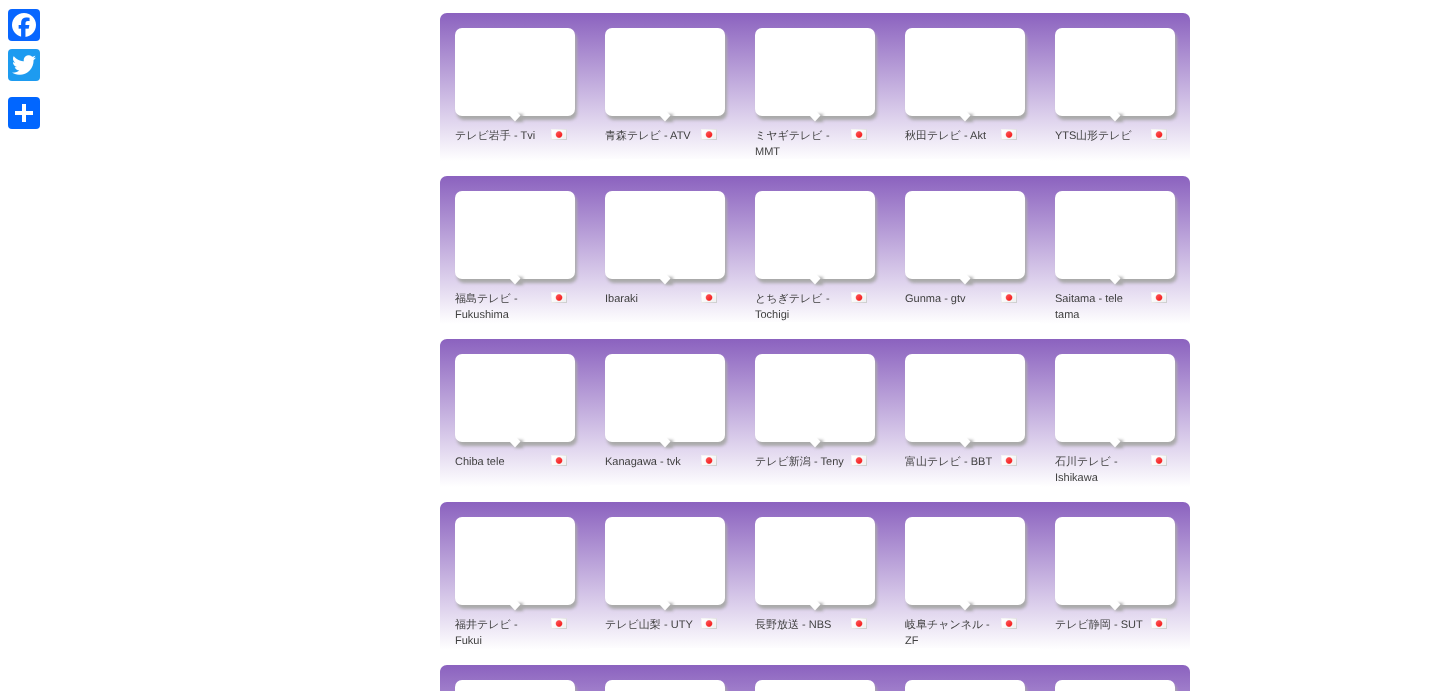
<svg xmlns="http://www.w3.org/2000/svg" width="1450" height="691">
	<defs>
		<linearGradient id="g1" gradientUnits="userSpaceOnUse" x1="515" y1="13" x2="515" y2="161"><stop offset="0" stop-color="#8B62BF" /><stop offset="1" stop-color="#FFFFFF" /></linearGradient>
		<linearGradient id="g2" gradientUnits="userSpaceOnUse" x1="665" y1="13" x2="665" y2="161"><stop offset="0" stop-color="#8B62BF" /><stop offset="1" stop-color="#FFFFFF" /></linearGradient>
		<linearGradient id="g3" gradientUnits="userSpaceOnUse" x1="815" y1="13" x2="815" y2="161"><stop offset="0" stop-color="#8B62BF" /><stop offset="1" stop-color="#FFFFFF" /></linearGradient>
		<linearGradient id="g4" gradientUnits="userSpaceOnUse" x1="965" y1="13" x2="965" y2="161"><stop offset="0" stop-color="#8B62BF" /><stop offset="1" stop-color="#FFFFFF" /></linearGradient>
		<linearGradient id="g5" gradientUnits="userSpaceOnUse" x1="1115" y1="13" x2="1115" y2="161"><stop offset="0" stop-color="#8B62BF" /><stop offset="1" stop-color="#FFFFFF" /></linearGradient>
		<linearGradient id="g6" gradientUnits="userSpaceOnUse" x1="515" y1="176" x2="515" y2="324"><stop offset="0" stop-color="#8B62BF" /><stop offset="1" stop-color="#FFFFFF" /></linearGradient>
		<linearGradient id="g7" gradientUnits="userSpaceOnUse" x1="665" y1="176" x2="665" y2="324"><stop offset="0" stop-color="#8B62BF" /><stop offset="1" stop-color="#FFFFFF" /></linearGradient>
		<linearGradient id="g8" gradientUnits="userSpaceOnUse" x1="815" y1="176" x2="815" y2="324"><stop offset="0" stop-color="#8B62BF" /><stop offset="1" stop-color="#FFFFFF" /></linearGradient>
		<linearGradient id="g9" gradientUnits="userSpaceOnUse" x1="965" y1="176" x2="965" y2="324"><stop offset="0" stop-color="#8B62BF" /><stop offset="1" stop-color="#FFFFFF" /></linearGradient>
		<linearGradient id="g10" gradientUnits="userSpaceOnUse" x1="1115" y1="176" x2="1115" y2="324"><stop offset="0" stop-color="#8B62BF" /><stop offset="1" stop-color="#FFFFFF" /></linearGradient>
		<linearGradient id="g11" gradientUnits="userSpaceOnUse" x1="515" y1="339" x2="515" y2="487"><stop offset="0" stop-color="#8B62BF" /><stop offset="1" stop-color="#FFFFFF" /></linearGradient>
		<linearGradient id="g12" gradientUnits="userSpaceOnUse" x1="665" y1="339" x2="665" y2="487"><stop offset="0" stop-color="#8B62BF" /><stop offset="1" stop-color="#FFFFFF" /></linearGradient>
		<linearGradient id="g13" gradientUnits="userSpaceOnUse" x1="815" y1="339" x2="815" y2="487"><stop offset="0" stop-color="#8B62BF" /><stop offset="1" stop-color="#FFFFFF" /></linearGradient>
		<linearGradient id="g14" gradientUnits="userSpaceOnUse" x1="965" y1="339" x2="965" y2="487"><stop offset="0" stop-color="#8B62BF" /><stop offset="1" stop-color="#FFFFFF" /></linearGradient>
		<linearGradient id="g15" gradientUnits="userSpaceOnUse" x1="1115" y1="339" x2="1115" y2="487"><stop offset="0" stop-color="#8B62BF" /><stop offset="1" stop-color="#FFFFFF" /></linearGradient>
		<linearGradient id="g16" gradientUnits="userSpaceOnUse" x1="515" y1="502" x2="515" y2="650"><stop offset="0" stop-color="#8B62BF" /><stop offset="1" stop-color="#FFFFFF" /></linearGradient>
		<linearGradient id="g17" gradientUnits="userSpaceOnUse" x1="665" y1="502" x2="665" y2="650"><stop offset="0" stop-color="#8B62BF" /><stop offset="1" stop-color="#FFFFFF" /></linearGradient>
		<linearGradient id="g18" gradientUnits="userSpaceOnUse" x1="815" y1="502" x2="815" y2="650"><stop offset="0" stop-color="#8B62BF" /><stop offset="1" stop-color="#FFFFFF" /></linearGradient>
		<linearGradient id="g19" gradientUnits="userSpaceOnUse" x1="965" y1="502" x2="965" y2="650"><stop offset="0" stop-color="#8B62BF" /><stop offset="1" stop-color="#FFFFFF" /></linearGradient>
		<linearGradient id="g20" gradientUnits="userSpaceOnUse" x1="1115" y1="502" x2="1115" y2="650"><stop offset="0" stop-color="#8B62BF" /><stop offset="1" stop-color="#FFFFFF" /></linearGradient>
		<linearGradient id="g21" gradientUnits="userSpaceOnUse" x1="515" y1="665" x2="515" y2="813"><stop offset="0" stop-color="#8B62BF" /><stop offset="1" stop-color="#FFFFFF" /></linearGradient>
		<linearGradient id="g22" gradientUnits="userSpaceOnUse" x1="665" y1="665" x2="665" y2="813"><stop offset="0" stop-color="#8B62BF" /><stop offset="1" stop-color="#FFFFFF" /></linearGradient>
		<linearGradient id="g23" gradientUnits="userSpaceOnUse" x1="815" y1="665" x2="815" y2="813"><stop offset="0" stop-color="#8B62BF" /><stop offset="1" stop-color="#FFFFFF" /></linearGradient>
		<linearGradient id="g24" gradientUnits="userSpaceOnUse" x1="965" y1="665" x2="965" y2="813"><stop offset="0" stop-color="#8B62BF" /><stop offset="1" stop-color="#FFFFFF" /></linearGradient>
		<linearGradient id="g25" gradientUnits="userSpaceOnUse" x1="1115" y1="665" x2="1115" y2="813"><stop offset="0" stop-color="#8B62BF" /><stop offset="1" stop-color="#FFFFFF" /></linearGradient>
	</defs>
	<rect width="100%" height="100%" fill="#FFFFFF" />
	<rect x="8" y="9" width="32" height="32" rx="4" fill="#0866FF" />
	<image x="12" y="13" width="24" height="24" href="assets/img1.png" />
	<rect x="8" y="49" width="32" height="32" rx="4" fill="#1D9BF0" />
	<image x="12" y="55" width="24" height="20" href="assets/img2.png" />
	<rect x="8" y="97" width="32" height="32" rx="4" fill="#0166FF" />
	<rect x="22" y="104" width="4" height="18" fill="#FFFFFF" />
	<rect x="15" y="111" width="18" height="4" fill="#FFFFFF" />
	<path d="M447 13H590V161H440V20C440 16 443 13 447 13Z" fill="url(#g1)" />
	<rect x="457" y="32" width="120" height="88" rx="7" fill="#AAAAAA" filter="blur(1.5px)" />
	<rect x="455" y="28" width="120" height="88" rx="7" fill="#FFFFFF" />
	<rect x="515" y="114" width="8" height="8" fill="#AAAAAA" filter="blur(1.5px)" />
	<path d="M515 110L520.5 115.5L515 121.5L509.5 115.5Z" fill="#FFFFFF" />
	<text x="455" y="139" font-family="WenQuanYi Zen Hei" font-size="11" font-weight="500" fill="#3F3F3F">テレビ岩手</text>
	<text x="514" y="139" font-family="Liberation Sans" font-size="11" fill="#3F3F3F">- Tvi</text>
	<image x="551" y="129" width="16" height="11" href="assets/img3.png" />
	<rect x="590" y="13" width="150" height="146" fill="url(#g2)" />
	<rect x="607" y="32" width="120" height="88" rx="7" fill="#AAAAAA" filter="blur(1.5px)" />
	<rect x="605" y="28" width="120" height="88" rx="7" fill="#FFFFFF" />
	<rect x="665" y="114" width="8" height="8" fill="#AAAAAA" filter="blur(1.5px)" />
	<path d="M665 110L670.5 115.5L665 121.5L659.5 115.5Z" fill="#FFFFFF" />
	<text x="605" y="139" font-family="WenQuanYi Zen Hei" font-size="11" font-weight="500" fill="#3F3F3F">青森テレビ</text>
	<text x="664" y="139" font-family="Liberation Sans" font-size="11" fill="#3F3F3F">- ATV</text>
	<image x="701" y="129" width="16" height="11" href="assets/img3.png" />
	<rect x="740" y="13" width="150" height="146" fill="url(#g3)" />
	<rect x="757" y="32" width="120" height="88" rx="7" fill="#AAAAAA" filter="blur(1.5px)" />
	<rect x="755" y="28" width="120" height="88" rx="7" fill="#FFFFFF" />
	<rect x="815" y="114" width="8" height="8" fill="#AAAAAA" filter="blur(1.5px)" />
	<path d="M815 110L820.5 115.5L815 121.5L809.5 115.5Z" fill="#FFFFFF" />
	<text x="755" y="139" font-family="WenQuanYi Zen Hei" font-size="11" font-weight="500" fill="#3F3F3F">ミヤギテレビ</text>
	<text x="826" y="139" font-family="Liberation Sans" font-size="11" fill="#3F3F3F">-</text>
	<image x="851" y="129" width="16" height="11" href="assets/img3.png" />
	<text x="755" y="155" font-family="Liberation Sans" font-size="11" fill="#3F3F3F">MMT</text>
	<rect x="890" y="13" width="150" height="146" fill="url(#g4)" />
	<rect x="907" y="32" width="120" height="88" rx="7" fill="#AAAAAA" filter="blur(1.5px)" />
	<rect x="905" y="28" width="120" height="88" rx="7" fill="#FFFFFF" />
	<rect x="965" y="114" width="8" height="8" fill="#AAAAAA" filter="blur(1.5px)" />
	<path d="M965 110L970.5 115.5L965 121.5L959.5 115.5Z" fill="#FFFFFF" />
	<text x="905" y="139" font-family="WenQuanYi Zen Hei" font-size="11" font-weight="500" fill="#3F3F3F">秋田テレビ</text>
	<text x="964" y="139" font-family="Liberation Sans" font-size="11" fill="#3F3F3F">- Akt</text>
	<image x="1001" y="129" width="16" height="11" href="assets/img3.png" />
	<path d="M1040 13H1183C1187 13 1190 16 1190 20V161H1040Z" fill="url(#g5)" />
	<rect x="1057" y="32" width="120" height="88" rx="7" fill="#AAAAAA" filter="blur(1.5px)" />
	<rect x="1055" y="28" width="120" height="88" rx="7" fill="#FFFFFF" />
	<rect x="1115" y="114" width="8" height="8" fill="#AAAAAA" filter="blur(1.5px)" />
	<path d="M1115 110L1120.5 115.5L1115 121.5L1109.5 115.5Z" fill="#FFFFFF" />
	<text x="1055" y="139" font-family="Liberation Sans" font-size="11" fill="#3F3F3F">YTS</text>
	<text x="1076" y="139" font-family="WenQuanYi Zen Hei" font-size="11" font-weight="500" fill="#3F3F3F">山形テレビ</text>
	<image x="1151" y="129" width="16" height="11" href="assets/img3.png" />
	<path d="M447 176H590V324H440V183C440 179 443 176 447 176Z" fill="url(#g6)" />
	<rect x="457" y="195" width="120" height="88" rx="7" fill="#AAAAAA" filter="blur(1.5px)" />
	<rect x="455" y="191" width="120" height="88" rx="7" fill="#FFFFFF" />
	<rect x="515" y="277" width="8" height="8" fill="#AAAAAA" filter="blur(1.5px)" />
	<path d="M515 273L520.5 278.5L515 284.5L509.5 278.5Z" fill="#FFFFFF" />
	<text x="455" y="302" font-family="WenQuanYi Zen Hei" font-size="11" font-weight="500" fill="#3F3F3F">福島テレビ</text>
	<text x="514" y="302" font-family="Liberation Sans" font-size="11" fill="#3F3F3F">-</text>
	<image x="551" y="292" width="16" height="11" href="assets/img3.png" />
	<text x="455" y="318" font-family="Liberation Sans" font-size="11" fill="#3F3F3F">Fukushima</text>
	<rect x="590" y="176" width="150" height="146" fill="url(#g7)" />
	<rect x="607" y="195" width="120" height="88" rx="7" fill="#AAAAAA" filter="blur(1.5px)" />
	<rect x="605" y="191" width="120" height="88" rx="7" fill="#FFFFFF" />
	<rect x="665" y="277" width="8" height="8" fill="#AAAAAA" filter="blur(1.5px)" />
	<path d="M665 273L670.5 278.5L665 284.5L659.5 278.5Z" fill="#FFFFFF" />
	<text x="605" y="302" font-family="Liberation Sans" font-size="11" fill="#3F3F3F">Ibaraki</text>
	<image x="701" y="292" width="16" height="11" href="assets/img3.png" />
	<rect x="740" y="176" width="150" height="146" fill="url(#g8)" />
	<rect x="757" y="195" width="120" height="88" rx="7" fill="#AAAAAA" filter="blur(1.5px)" />
	<rect x="755" y="191" width="120" height="88" rx="7" fill="#FFFFFF" />
	<rect x="815" y="277" width="8" height="8" fill="#AAAAAA" filter="blur(1.5px)" />
	<path d="M815 273L820.5 278.5L815 284.5L809.5 278.5Z" fill="#FFFFFF" />
	<text x="755" y="302" font-family="WenQuanYi Zen Hei" font-size="11" font-weight="500" fill="#3F3F3F">とちぎテレビ</text>
	<text x="826" y="302" font-family="Liberation Sans" font-size="11" fill="#3F3F3F">-</text>
	<image x="851" y="292" width="16" height="11" href="assets/img3.png" />
	<text x="755" y="318" font-family="Liberation Sans" font-size="11" fill="#3F3F3F">Tochigi</text>
	<rect x="890" y="176" width="150" height="146" fill="url(#g9)" />
	<rect x="907" y="195" width="120" height="88" rx="7" fill="#AAAAAA" filter="blur(1.5px)" />
	<rect x="905" y="191" width="120" height="88" rx="7" fill="#FFFFFF" />
	<rect x="965" y="277" width="8" height="8" fill="#AAAAAA" filter="blur(1.5px)" />
	<path d="M965 273L970.5 278.5L965 284.5L959.5 278.5Z" fill="#FFFFFF" />
	<text x="905" y="302" font-family="Liberation Sans" font-size="11" fill="#3F3F3F">Gunma - gtv</text>
	<image x="1001" y="292" width="16" height="11" href="assets/img3.png" />
	<path d="M1040 176H1183C1187 176 1190 179 1190 183V324H1040Z" fill="url(#g10)" />
	<rect x="1057" y="195" width="120" height="88" rx="7" fill="#AAAAAA" filter="blur(1.5px)" />
	<rect x="1055" y="191" width="120" height="88" rx="7" fill="#FFFFFF" />
	<rect x="1115" y="277" width="8" height="8" fill="#AAAAAA" filter="blur(1.5px)" />
	<path d="M1115 273L1120.5 278.5L1115 284.5L1109.5 278.5Z" fill="#FFFFFF" />
	<text x="1055" y="302" font-family="Liberation Sans" font-size="11" fill="#3F3F3F">Saitama - tele</text>
	<image x="1151" y="292" width="16" height="11" href="assets/img3.png" />
	<text x="1055" y="318" font-family="Liberation Sans" font-size="11" fill="#3F3F3F">tama</text>
	<path d="M447 339H590V487H440V346C440 342 443 339 447 339Z" fill="url(#g11)" />
	<rect x="457" y="358" width="120" height="88" rx="7" fill="#AAAAAA" filter="blur(1.5px)" />
	<rect x="455" y="354" width="120" height="88" rx="7" fill="#FFFFFF" />
	<rect x="515" y="440" width="8" height="8" fill="#AAAAAA" filter="blur(1.5px)" />
	<path d="M515 436L520.5 441.5L515 447.5L509.5 441.5Z" fill="#FFFFFF" />
	<text x="455" y="465" font-family="Liberation Sans" font-size="11" fill="#3F3F3F">Chiba tele</text>
	<image x="551" y="455" width="16" height="11" href="assets/img3.png" />
	<rect x="590" y="339" width="150" height="146" fill="url(#g12)" />
	<rect x="607" y="358" width="120" height="88" rx="7" fill="#AAAAAA" filter="blur(1.5px)" />
	<rect x="605" y="354" width="120" height="88" rx="7" fill="#FFFFFF" />
	<rect x="665" y="440" width="8" height="8" fill="#AAAAAA" filter="blur(1.5px)" />
	<path d="M665 436L670.5 441.5L665 447.5L659.5 441.5Z" fill="#FFFFFF" />
	<text x="605" y="465" font-family="Liberation Sans" font-size="11" fill="#3F3F3F">Kanagawa - tvk</text>
	<image x="701" y="455" width="16" height="11" href="assets/img3.png" />
	<rect x="740" y="339" width="150" height="146" fill="url(#g13)" />
	<rect x="757" y="358" width="120" height="88" rx="7" fill="#AAAAAA" filter="blur(1.5px)" />
	<rect x="755" y="354" width="120" height="88" rx="7" fill="#FFFFFF" />
	<rect x="815" y="440" width="8" height="8" fill="#AAAAAA" filter="blur(1.5px)" />
	<path d="M815 436L820.5 441.5L815 447.5L809.5 441.5Z" fill="#FFFFFF" />
	<text x="755" y="465" font-family="WenQuanYi Zen Hei" font-size="11" font-weight="500" fill="#3F3F3F">テレビ新潟</text>
	<text x="814" y="465" font-family="Liberation Sans" font-size="11" fill="#3F3F3F">- Teny</text>
	<image x="851" y="455" width="16" height="11" href="assets/img3.png" />
	<rect x="890" y="339" width="150" height="146" fill="url(#g14)" />
	<rect x="907" y="358" width="120" height="88" rx="7" fill="#AAAAAA" filter="blur(1.5px)" />
	<rect x="905" y="354" width="120" height="88" rx="7" fill="#FFFFFF" />
	<rect x="965" y="440" width="8" height="8" fill="#AAAAAA" filter="blur(1.5px)" />
	<path d="M965 436L970.5 441.5L965 447.5L959.5 441.5Z" fill="#FFFFFF" />
	<text x="905" y="465" font-family="WenQuanYi Zen Hei" font-size="11" font-weight="500" fill="#3F3F3F">富山テレビ</text>
	<text x="964" y="465" font-family="Liberation Sans" font-size="11" fill="#3F3F3F">- BBT</text>
	<image x="1001" y="455" width="16" height="11" href="assets/img3.png" />
	<path d="M1040 339H1183C1187 339 1190 342 1190 346V487H1040Z" fill="url(#g15)" />
	<rect x="1057" y="358" width="120" height="88" rx="7" fill="#AAAAAA" filter="blur(1.5px)" />
	<rect x="1055" y="354" width="120" height="88" rx="7" fill="#FFFFFF" />
	<rect x="1115" y="440" width="8" height="8" fill="#AAAAAA" filter="blur(1.5px)" />
	<path d="M1115 436L1120.5 441.5L1115 447.5L1109.5 441.5Z" fill="#FFFFFF" />
	<text x="1055" y="465" font-family="WenQuanYi Zen Hei" font-size="11" font-weight="500" fill="#3F3F3F">石川テレビ</text>
	<text x="1114" y="465" font-family="Liberation Sans" font-size="11" fill="#3F3F3F">-</text>
	<image x="1151" y="455" width="16" height="11" href="assets/img3.png" />
	<text x="1055" y="481" font-family="Liberation Sans" font-size="11" fill="#3F3F3F">Ishikawa</text>
	<path d="M447 502H590V650H440V509C440 505 443 502 447 502Z" fill="url(#g16)" />
	<rect x="457" y="521" width="120" height="88" rx="7" fill="#AAAAAA" filter="blur(1.5px)" />
	<rect x="455" y="517" width="120" height="88" rx="7" fill="#FFFFFF" />
	<rect x="515" y="603" width="8" height="8" fill="#AAAAAA" filter="blur(1.5px)" />
	<path d="M515 599L520.5 604.5L515 610.5L509.5 604.5Z" fill="#FFFFFF" />
	<text x="455" y="628" font-family="WenQuanYi Zen Hei" font-size="11" font-weight="500" fill="#3F3F3F">福井テレビ</text>
	<text x="514" y="628" font-family="Liberation Sans" font-size="11" fill="#3F3F3F">-</text>
	<image x="551" y="618" width="16" height="11" href="assets/img3.png" />
	<text x="455" y="644" font-family="Liberation Sans" font-size="11" fill="#3F3F3F">Fukui</text>
	<rect x="590" y="502" width="150" height="146" fill="url(#g17)" />
	<rect x="607" y="521" width="120" height="88" rx="7" fill="#AAAAAA" filter="blur(1.5px)" />
	<rect x="605" y="517" width="120" height="88" rx="7" fill="#FFFFFF" />
	<rect x="665" y="603" width="8" height="8" fill="#AAAAAA" filter="blur(1.5px)" />
	<path d="M665 599L670.5 604.5L665 610.5L659.5 604.5Z" fill="#FFFFFF" />
	<text x="605" y="628" font-family="WenQuanYi Zen Hei" font-size="11" font-weight="500" fill="#3F3F3F">テレビ山梨</text>
	<text x="664" y="628" font-family="Liberation Sans" font-size="11" fill="#3F3F3F">- UTY</text>
	<image x="701" y="618" width="16" height="11" href="assets/img3.png" />
	<rect x="740" y="502" width="150" height="146" fill="url(#g18)" />
	<rect x="757" y="521" width="120" height="88" rx="7" fill="#AAAAAA" filter="blur(1.5px)" />
	<rect x="755" y="517" width="120" height="88" rx="7" fill="#FFFFFF" />
	<rect x="815" y="603" width="8" height="8" fill="#AAAAAA" filter="blur(1.5px)" />
	<path d="M815 599L820.5 604.5L815 610.5L809.5 604.5Z" fill="#FFFFFF" />
	<text x="755" y="628" font-family="WenQuanYi Zen Hei" font-size="11" font-weight="500" fill="#3F3F3F">長野放送</text>
	<text x="802" y="628" font-family="Liberation Sans" font-size="11" fill="#3F3F3F">- NBS</text>
	<image x="851" y="618" width="16" height="11" href="assets/img3.png" />
	<rect x="890" y="502" width="150" height="146" fill="url(#g19)" />
	<rect x="907" y="521" width="120" height="88" rx="7" fill="#AAAAAA" filter="blur(1.5px)" />
	<rect x="905" y="517" width="120" height="88" rx="7" fill="#FFFFFF" />
	<rect x="965" y="603" width="8" height="8" fill="#AAAAAA" filter="blur(1.5px)" />
	<path d="M965 599L970.5 604.5L965 610.5L959.5 604.5Z" fill="#FFFFFF" />
	<text x="905" y="628" font-family="WenQuanYi Zen Hei" font-size="11" font-weight="500" fill="#3F3F3F">岐阜チャンネル</text>
	<text x="986" y="628" font-family="Liberation Sans" font-size="11" fill="#3F3F3F">-</text>
	<image x="1001" y="618" width="16" height="11" href="assets/img3.png" />
	<text x="905" y="644" font-family="Liberation Sans" font-size="11" fill="#3F3F3F">ZF</text>
	<path d="M1040 502H1183C1187 502 1190 505 1190 509V650H1040Z" fill="url(#g20)" />
	<rect x="1057" y="521" width="120" height="88" rx="7" fill="#AAAAAA" filter="blur(1.5px)" />
	<rect x="1055" y="517" width="120" height="88" rx="7" fill="#FFFFFF" />
	<rect x="1115" y="603" width="8" height="8" fill="#AAAAAA" filter="blur(1.5px)" />
	<path d="M1115 599L1120.5 604.5L1115 610.5L1109.5 604.5Z" fill="#FFFFFF" />
	<text x="1055" y="628" font-family="WenQuanYi Zen Hei" font-size="11" font-weight="500" fill="#3F3F3F">テレビ静岡</text>
	<text x="1114" y="628" font-family="Liberation Sans" font-size="11" fill="#3F3F3F">- SUT</text>
	<image x="1151" y="618" width="16" height="11" href="assets/img3.png" />
	<path d="M447 665H590V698H440V672C440 668 443 665 447 665Z" fill="url(#g21)" />
	<rect x="457" y="684" width="120" height="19" rx="7" fill="#AAAAAA" filter="blur(1.5px)" />
	<rect x="455" y="680" width="120" height="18" rx="7" fill="#FFFFFF" />
	<rect x="590" y="665" width="150" height="26" fill="url(#g22)" />
	<rect x="607" y="684" width="120" height="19" rx="7" fill="#AAAAAA" filter="blur(1.5px)" />
	<rect x="605" y="680" width="120" height="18" rx="7" fill="#FFFFFF" />
	<rect x="740" y="665" width="150" height="26" fill="url(#g23)" />
	<rect x="757" y="684" width="120" height="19" rx="7" fill="#AAAAAA" filter="blur(1.5px)" />
	<rect x="755" y="680" width="120" height="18" rx="7" fill="#FFFFFF" />
	<rect x="890" y="665" width="150" height="26" fill="url(#g24)" />
	<rect x="907" y="684" width="120" height="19" rx="7" fill="#AAAAAA" filter="blur(1.5px)" />
	<rect x="905" y="680" width="120" height="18" rx="7" fill="#FFFFFF" />
	<path d="M1040 665H1183C1187 665 1190 668 1190 672V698H1040Z" fill="url(#g25)" />
	<rect x="1057" y="684" width="120" height="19" rx="7" fill="#AAAAAA" filter="blur(1.5px)" />
	<rect x="1055" y="680" width="120" height="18" rx="7" fill="#FFFFFF" />
</svg>
